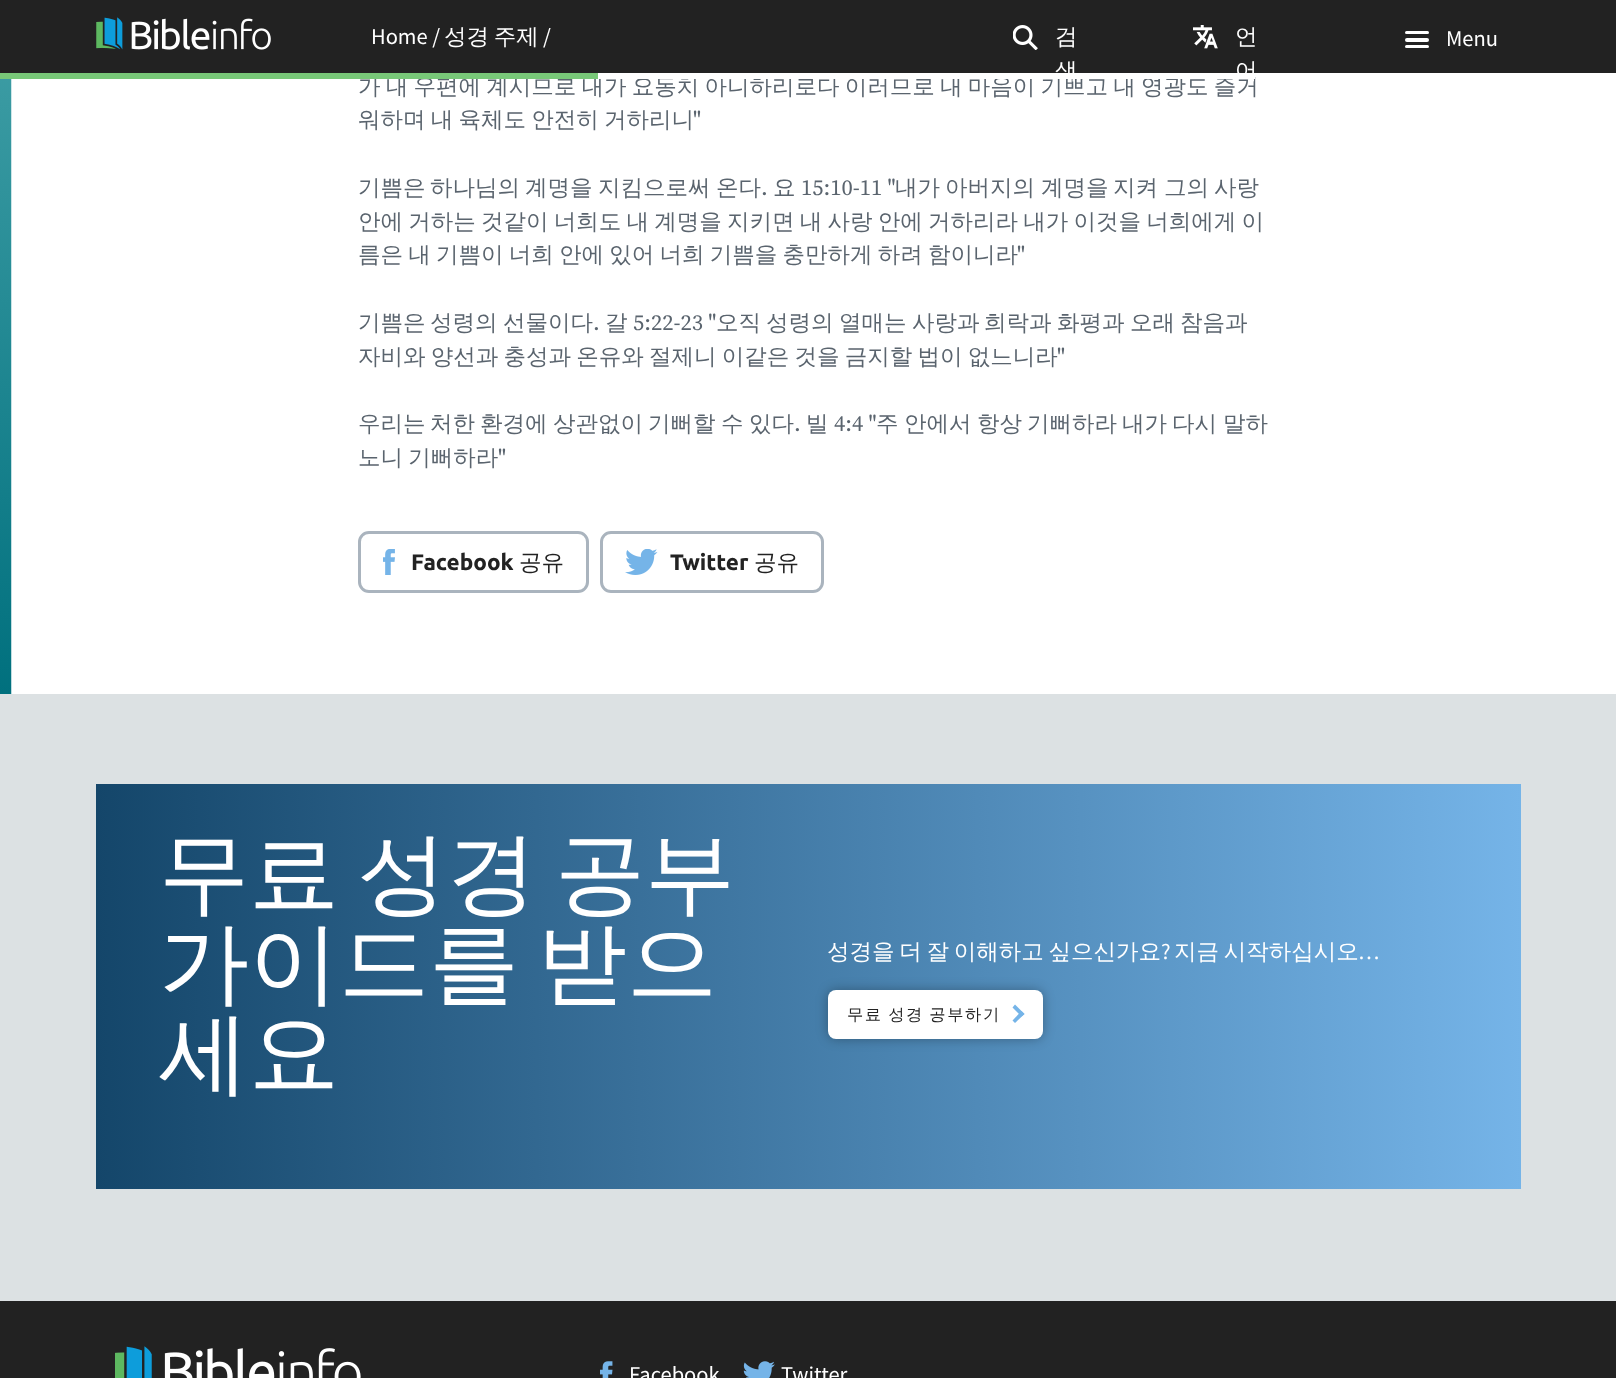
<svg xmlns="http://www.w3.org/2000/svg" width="1616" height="1378">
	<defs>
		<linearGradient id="g1" gradientUnits="userSpaceOnUse" x1="1521" y1="986" x2="96" y2="986"><stop offset="0" stop-color="#75B4E8" /><stop offset="1" stop-color="#14466A" /></linearGradient>
	</defs>
	<rect width="100%" height="100%" fill="#FFFFFF" />
	<rect x="0" y="0" width="1616" height="73" fill="#222222" />
	<image x="96" y="17" width="175" height="33" href="assets/img1.png" />
	<text x="371" y="44" font-family="Source Sans Pro" font-size="22.5" fill="#FFFFFF">Home /</text>
	<text x="444" y="44" word-spacing="-2" font-family="WenQuanYi Zen Hei" font-size="22.5" font-weight="500" fill="#FFFFFF">성경 주제</text>
	<text x="543" y="44" font-family="Source Sans Pro" font-size="22.5" fill="#FFFFFF">/</text>
	<image x="1013" y="25" width="25" height="25" href="assets/img2.png" />
	<text x="1055" y="44" font-family="WenQuanYi Zen Hei" font-size="22.5" font-weight="500" fill="#FFFFFF">검</text>
	<text x="358" y="94" word-spacing="-1.5" font-family="WenQuanYi Zen Hei" font-size="22.5" font-weight="500" fill="#5A646E">가 내 우편에 계시므로 내가 요동치 아니하리로다 이러므로 내 마음이 기쁘고 내 영광도 즐거</text>
	<rect x="598" y="77" width="657" height="2" fill="#FFFFFF" />
	<text x="1055" y="78" font-family="WenQuanYi Zen Hei" font-size="22.5" font-weight="500" fill="#FFFFFF">색</text>
	<image x="1193" y="25" width="25" height="24" href="assets/img3.png" />
	<g font-family="WenQuanYi Zen Hei" font-size="22.5" font-weight="500" fill="#FFFFFF">
		<text x="1235" y="44">언</text>
		<text x="1235" y="78">어</text>
	</g>
	<rect x="1405" y="31" width="24" height="3" rx="1.5" fill="#FFFFFF" />
	<rect x="1405" y="38" width="24" height="4" rx="2" fill="#FFFFFF" />
	<rect x="1405" y="45" width="24" height="3" rx="1.5" fill="#FFFFFF" />
	<text x="1446" y="46" font-family="Source Sans Pro" font-size="22.5" fill="#FFFFFF">Menu</text>
	<rect x="0" y="73" width="598" height="6" fill="#78C878" />
	<image x="0" y="79" width="12" height="615" href="assets/img4.png" />
	<text x="358" y="127" word-spacing="-1.5" font-family="WenQuanYi Zen Hei" font-size="22.5" font-weight="500" fill="#5A646E">워하며 내 육체도 안전히 거하리니</text>
	<text x="693" y="127" font-family="Source Serif Pro" font-size="22.5" fill="#5A646E">"</text>
	<g font-family="WenQuanYi Zen Hei" font-size="22.5" font-weight="500" fill="#5A646E">
		<text x="358" y="195">기쁨은</text>
		<text x="430" y="195">하나님의</text>
		<text x="525" y="195">계명을</text>
		<text x="598" y="195">지킴으로써</text>
		<text x="716" y="195">온다</text>
	</g>
	<text x="761" y="195" font-family="Source Serif Pro" font-size="22.5" fill="#5A646E">.</text>
	<text x="773" y="195" font-family="WenQuanYi Zen Hei" font-size="22.5" font-weight="500" fill="#5A646E">요</text>
	<text x="801" y="195" font-family="Source Serif Pro" font-size="22.5" fill="#5A646E">15:10-11 "</text>
	<g font-family="WenQuanYi Zen Hei" font-size="22.5" font-weight="500" fill="#5A646E">
		<text x="895" y="195">내가</text>
		<text x="945" y="195">아버지의</text>
		<text x="1041" y="195">계명을</text>
		<text x="1113" y="195">지켜</text>
		<text x="1164" y="195">그의</text>
		<text x="1214" y="195">사랑</text>
		<text x="358" y="229" word-spacing="-1.5">안에 거하는 것같이 너희도 내 계명을 지키면 내 사랑 안에 거하리라 내가 이것을 너희에게 이</text>
		<text x="358" y="262" word-spacing="-1.5">름은 내 기쁨이 너희 안에 있어 너희 기쁨을 충만하게 하려 함이니라</text>
	</g>
	<text x="1017" y="262" font-family="Source Serif Pro" font-size="22.5" fill="#5A646E">"</text>
	<g font-family="WenQuanYi Zen Hei" font-size="22.5" font-weight="500" fill="#5A646E">
		<text x="358" y="330">기쁨은</text>
		<text x="430" y="330">성령의</text>
		<text x="503" y="330">선물이다</text>
	</g>
	<text x="593" y="330" font-family="Source Serif Pro" font-size="22.5" fill="#5A646E">.</text>
	<text x="605" y="330" font-family="WenQuanYi Zen Hei" font-size="22.5" font-weight="500" fill="#5A646E">갈</text>
	<text x="633" y="330" font-family="Source Serif Pro" font-size="22.5" fill="#5A646E">5:22-23 "</text>
	<g font-family="WenQuanYi Zen Hei" font-size="22.5" font-weight="500" fill="#5A646E">
		<text x="716" y="330">오직</text>
		<text x="766" y="330">성령의</text>
		<text x="839" y="330">열매는</text>
		<text x="912" y="330">사랑과</text>
		<text x="984" y="330">희락과</text>
		<text x="1057" y="330">화평과</text>
		<text x="1130" y="330">오래</text>
		<text x="1180" y="330">참음과</text>
		<text x="358" y="364" word-spacing="-1.5">자비와 양선과 충성과 온유와 절제니 이같은 것을 금지할 법이 없느니라</text>
	</g>
	<text x="1057" y="364" font-family="Source Serif Pro" font-size="22.5" fill="#5A646E">"</text>
	<g font-family="WenQuanYi Zen Hei" font-size="22.5" font-weight="500" fill="#5A646E">
		<text x="358" y="431">우리는</text>
		<text x="430" y="431">처한</text>
		<text x="480" y="431">환경에</text>
		<text x="553" y="431">상관없이</text>
		<text x="648" y="431">기뻐할</text>
		<text x="721" y="431">수</text>
		<text x="749" y="431">있다</text>
	</g>
	<text x="794" y="431" font-family="Source Serif Pro" font-size="22.5" fill="#5A646E">.</text>
	<text x="806" y="431" font-family="WenQuanYi Zen Hei" font-size="22.5" font-weight="500" fill="#5A646E">빌</text>
	<text x="834" y="431" font-family="Source Serif Pro" font-size="22.5" fill="#5A646E">4:4 "</text>
	<g font-family="WenQuanYi Zen Hei" font-size="22.5" font-weight="500" fill="#5A646E">
		<text x="876" y="431">주</text>
		<text x="904" y="431">안에서</text>
		<text x="977" y="431">항상</text>
		<text x="1027" y="431">기뻐하라</text>
		<text x="1122" y="431">내가</text>
		<text x="1172" y="431">다시</text>
		<text x="1223" y="431">말하</text>
		<text x="358" y="465" word-spacing="-1.5">노니 기뻐하라</text>
	</g>
	<text x="498" y="465" font-family="Source Serif Pro" font-size="22.5" fill="#5A646E">"</text>
	<rect x="359.5" y="532.5" width="228" height="59" rx="9.5" fill="none" stroke="#AAB4BE" stroke-width="3" />
	<image x="383" y="549" width="12" height="26" href="assets/img5.png" />
	<text x="411" y="570" font-family="Ubuntu" font-size="22.5" font-weight="700" fill="#222222">Facebook</text>
	<text x="519" y="570" font-family="WenQuanYi Zen Hei" font-size="22.5" font-weight="500" fill="#222222">공유</text>
	<rect x="601.5" y="532.5" width="221" height="59" rx="9.5" fill="none" stroke="#AAB4BE" stroke-width="3" />
	<image x="625" y="549" width="33" height="26" href="assets/img6.png" />
	<text x="670" y="570" font-family="Ubuntu" font-size="22.5" font-weight="700" fill="#222222">Twitter</text>
	<text x="754" y="570" font-family="WenQuanYi Zen Hei" font-size="22.5" font-weight="500" fill="#222222">공유</text>
	<rect x="0" y="694" width="1616" height="607" fill="#DCE1E3" />
	<rect x="96" y="784" width="1425" height="405" fill="url(#g1)" />
	<g font-family="WenQuanYi Zen Hei" font-size="90" font-weight="500" fill="#FFFFFF">
		<text x="159" y="904" word-spacing="-9">무료 성경 공부</text>
		<text x="159" y="994" word-spacing="-9">가이드를 받으</text>
		<text x="159" y="1084">세요</text>
	</g>
	<text x="827" y="959" word-spacing="-2" font-family="WenQuanYi Zen Hei" font-size="22.5" font-weight="500" fill="#FFFFFF">성경을 더 잘 이해하고 싶으신가요</text>
	<text x="1161" y="959" font-family="Source Sans Pro" font-size="22.5" fill="#FFFFFF">?</text>
	<text x="1174" y="959" word-spacing="-2" font-family="WenQuanYi Zen Hei" font-size="22.5" font-weight="500" fill="#FFFFFF">지금 시작하십시오</text>
	<text x="1358" y="959" font-family="Source Sans Pro" font-size="22.5" fill="#FFFFFF">…</text>
	<rect x="828" y="990" width="215" height="49" rx="8" fill="#000000" fill-opacity="0.3" filter="blur(6px)" />
	<rect x="828" y="990" width="215" height="49" rx="8" fill="#FFFFFF" />
	<text x="847" y="1020" word-spacing="-1" font-family="WenQuanYi Zen Hei" font-size="16.25" font-weight="500" letter-spacing="1.6" fill="#222222">무료 성경 공부하기</text>
	<path d="M1015 1004.5L1024.5 1014L1021.5 1016.5L1012.5 1007.5Z" fill="#75B4E8" />
	<path d="M1021.5 1011L1024.5 1014L1015 1023L1012.5 1020.5Z" fill="#75B4E8" />
	<rect x="0" y="1301" width="1616" height="77" fill="#222222" />
	<image x="115" y="1346" width="246" height="32" href="assets/img7.png" />
	<image x="600" y="1361" width="13" height="17" href="assets/img8.png" />
	<text x="629" y="1382" font-family="Source Sans Pro" font-size="22.5" fill="#FFFFFF">Facebook</text>
	<image x="743" y="1361" width="32" height="17" href="assets/img9.png" />
	<text x="781" y="1382" font-family="Source Sans Pro" font-size="22.5" fill="#FFFFFF">Twitter</text>
</svg>
